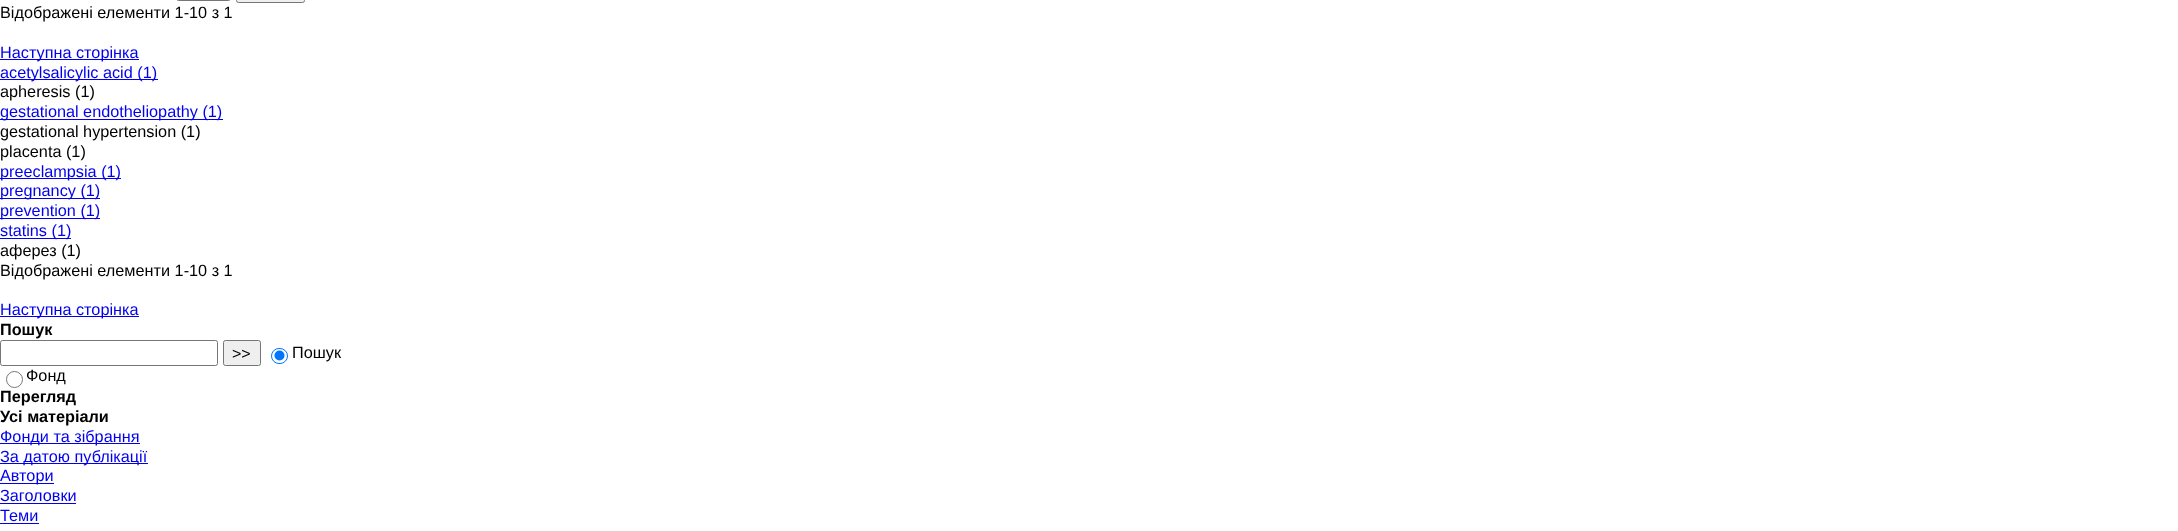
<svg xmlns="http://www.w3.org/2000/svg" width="2178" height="531">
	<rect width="100%" height="100%" fill="#FFFFFF" />
	<rect x="176.5" y="-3.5" width="54" height="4" rx="2" fill="none" stroke="#767676" />
	<rect x="236.5" y="-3.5" width="68" height="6" rx="2" fill="#EFEFEF" stroke="#767676" />
	<text x="0" y="18" font-family="Liberation Sans" font-size="16.25" fill="#000000">Відображені елементи 1-10 з 1</text>
	<rect x="0" y="59" width="139" height="1" fill="#0000EE" />
	<text x="0" y="58" font-family="Liberation Sans" font-size="16.25" fill="#0000EE">Наступна сторінка</text>
	<rect x="0" y="79" width="158" height="1" fill="#0000EE" />
	<text x="0" y="78" font-family="Liberation Sans" font-size="16.25" fill="#0000EE">acetylsalicylic acid (1)</text>
	<text x="0" y="97" font-family="Liberation Sans" font-size="16.25" fill="#000000">apheresis (1)</text>
	<rect x="0" y="119" width="223" height="1" fill="#0000EE" />
	<text x="0" y="117" font-family="Liberation Sans" font-size="16.25" fill="#0000EE">gestational endotheliopathy (1)</text>
	<g font-family="Liberation Sans" font-size="16.25" fill="#000000">
		<text x="0" y="137">gestational hypertension (1)</text>
		<text x="0" y="157">placenta (1)</text>
	</g>
	<rect x="0" y="178" width="121" height="1" fill="#0000EE" />
	<text x="0" y="177" font-family="Liberation Sans" font-size="16.25" fill="#0000EE">preeclampsia (1)</text>
	<rect x="0" y="198" width="100" height="1" fill="#0000EE" />
	<text x="0" y="196" font-family="Liberation Sans" font-size="16.25" fill="#0000EE">pregnancy (1)</text>
	<rect x="0" y="218" width="100" height="1" fill="#0000EE" />
	<text x="0" y="216" font-family="Liberation Sans" font-size="16.25" fill="#0000EE">prevention (1)</text>
	<rect x="0" y="238" width="71" height="1" fill="#0000EE" />
	<text x="0" y="236" font-family="Liberation Sans" font-size="16.25" fill="#0000EE">statins (1)</text>
	<g font-family="Liberation Sans" font-size="16.25" fill="#000000">
		<text x="0" y="256">аферез (1)</text>
		<text x="0" y="276">Відображені елементи 1-10 з 1</text>
	</g>
	<rect x="0" y="316" width="139" height="1" fill="#0000EE" />
	<text x="0" y="315" font-family="Liberation Sans" font-size="16.25" fill="#0000EE">Наступна сторінка</text>
	<text x="0" y="335" font-family="Liberation Sans" font-size="16.25" font-weight="700" fill="#000000">Пошук</text>
	<rect x="0.5" y="340.5" width="217" height="25" rx="2" fill="none" stroke="#767676" />
	<rect x="223.5" y="340.5" width="37" height="25" rx="2" fill="#EFEFEF" stroke="#767676" />
	<text x="232" y="359" font-family="Liberation Sans" font-size="16" fill="#000000">&gt;&gt;</text>
	<rect x="271.5" y="348.5" width="16" height="15" rx="7.5" fill="none" stroke="#0075FF" />
	<circle cx="279.5" cy="355.5" r="5" fill="#0075FF" />
	<text x="292" y="358" font-family="Liberation Sans" font-size="16.25" fill="#000000">Пошук</text>
	<circle cx="14.5" cy="379.5" r="8" fill="none" stroke="#767676" />
	<text x="26" y="381" font-family="Liberation Sans" font-size="16.25" fill="#000000">Фонд</text>
	<g font-family="Liberation Sans" font-size="16.25" font-weight="700" fill="#000000">
		<text x="0" y="402">Перегляд</text>
		<text x="0" y="422">Усі матеріали</text>
	</g>
	<rect x="0" y="443" width="140" height="1" fill="#0000EE" />
	<text x="0" y="442" font-family="Liberation Sans" font-size="16.25" fill="#0000EE">Фонди та зібрання</text>
	<rect x="0" y="463" width="148" height="1" fill="#0000EE" />
	<text x="0" y="462" font-family="Liberation Sans" font-size="16.25" fill="#0000EE">За датою публікації</text>
	<rect x="0" y="483" width="54" height="1" fill="#0000EE" />
	<g font-family="Liberation Sans" font-size="16.25" fill="#0000EE">
		<text x="0" y="481">Автори</text>
		<text x="0" y="501">Заголовки</text>
	</g>
	<rect x="0" y="503" width="76" height="1" fill="#0000EE" />
	<text x="0" y="521" font-family="Liberation Sans" font-size="16.25" fill="#0000EE">Теми</text>
	<rect x="0" y="523" width="39" height="1" fill="#0000EE" />
</svg>
